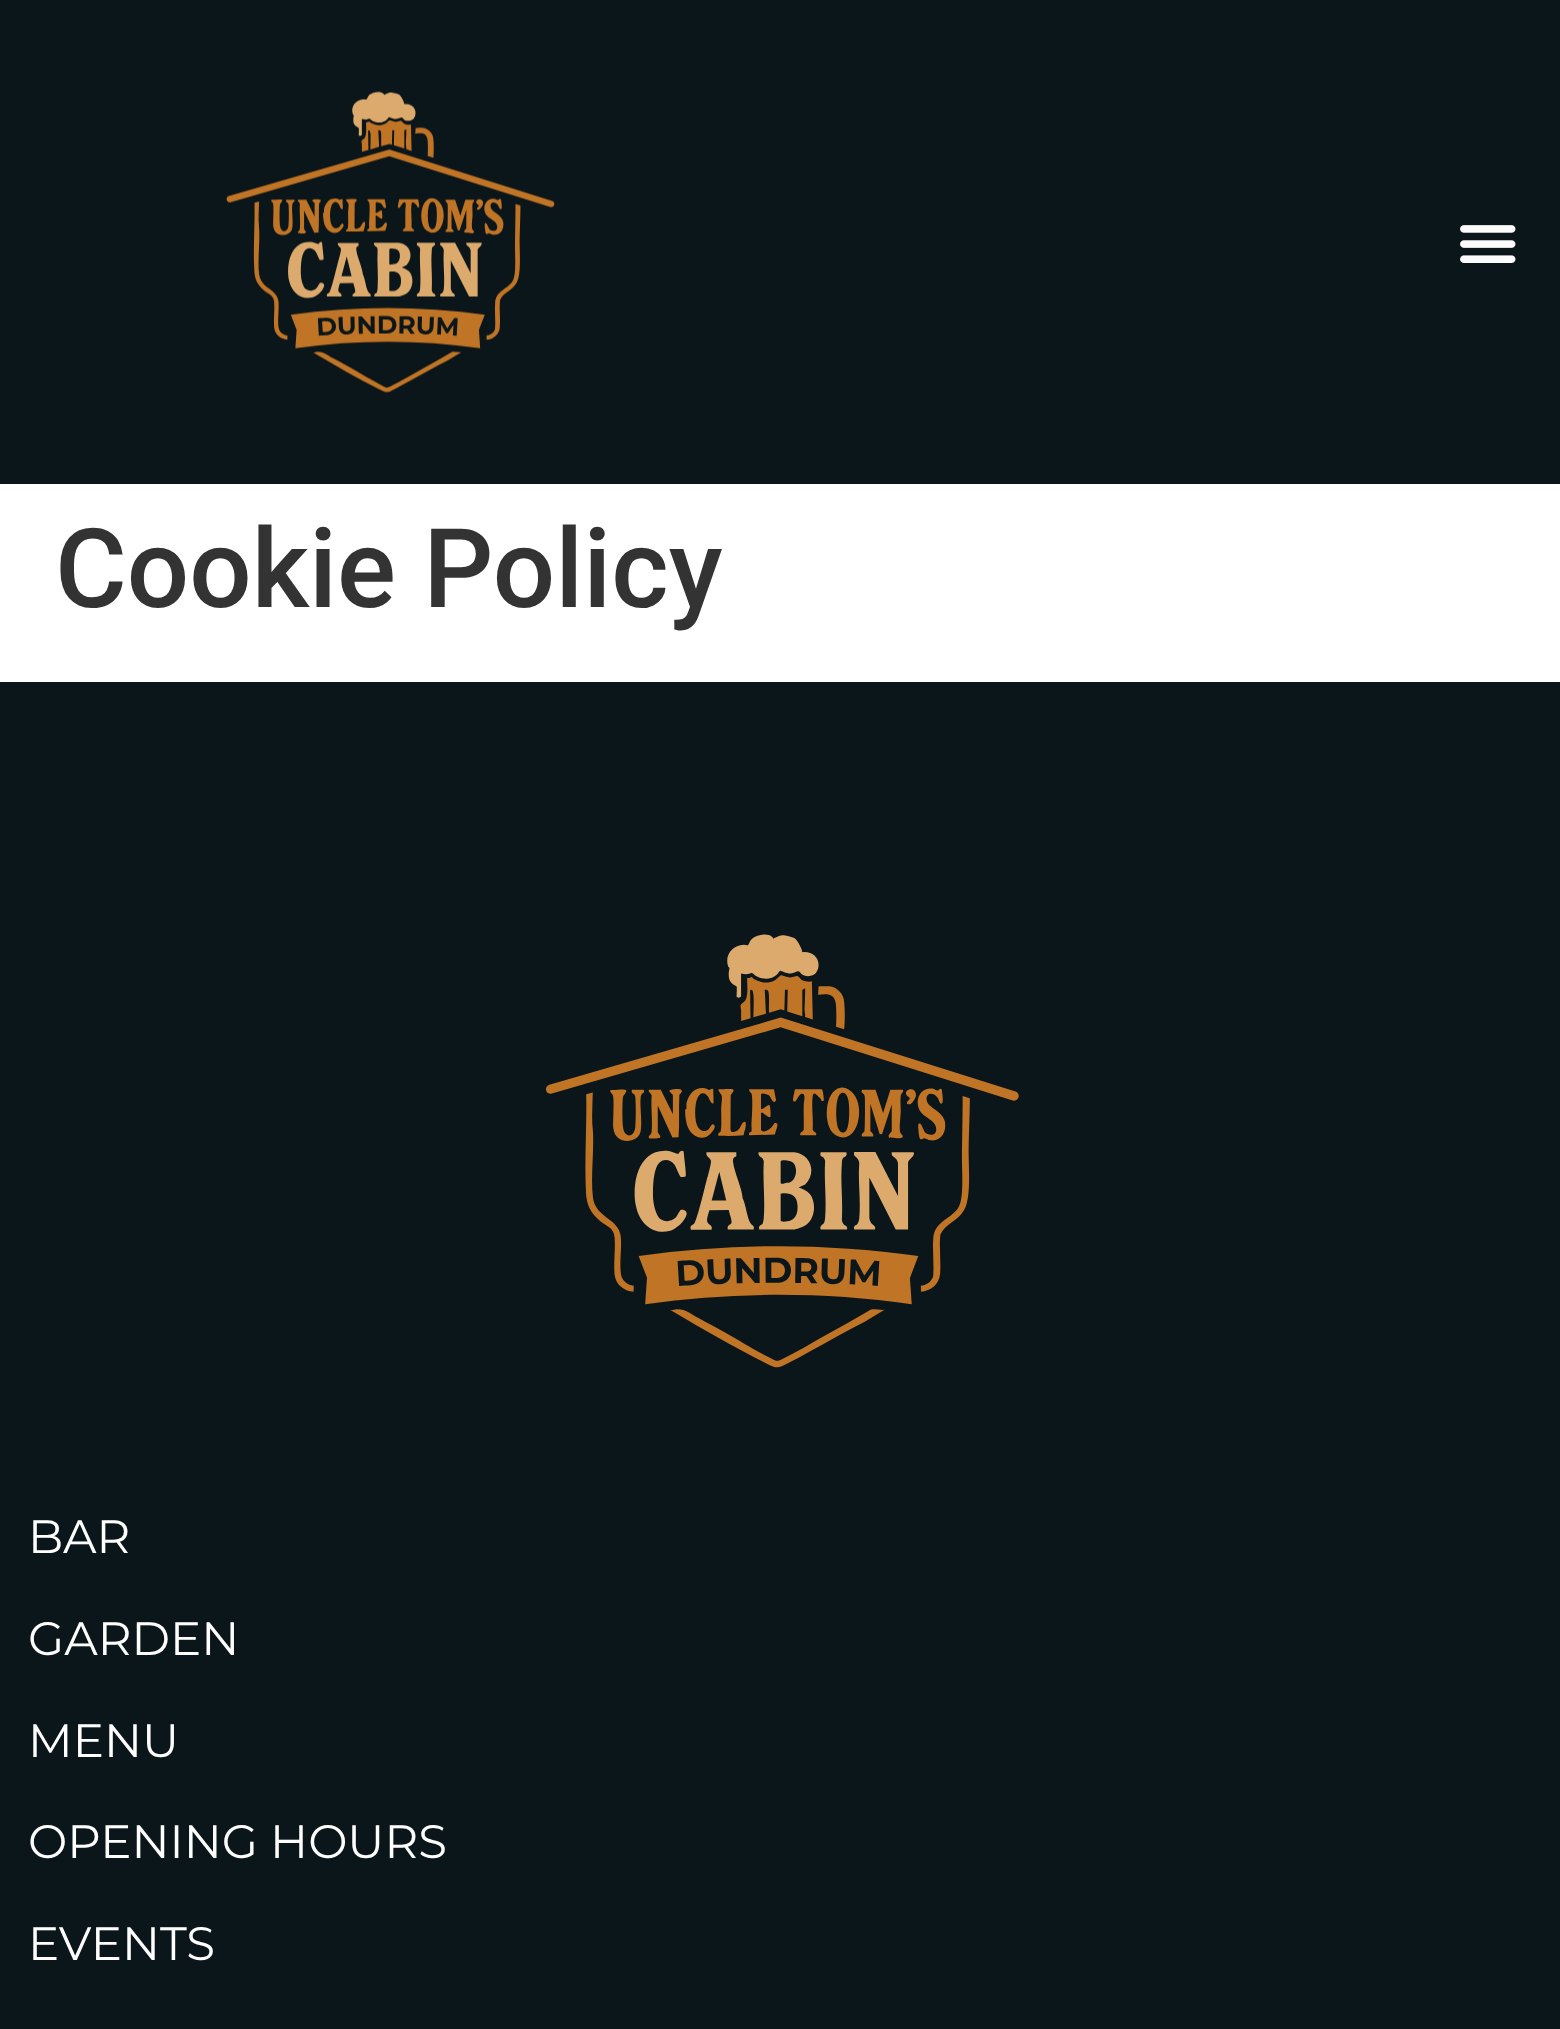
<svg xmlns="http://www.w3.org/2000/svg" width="1560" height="2029">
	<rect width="100%" height="100%" fill="#FFFFFF" />
	<rect x="0" y="0" width="1560" height="484" fill="#0B161A" />
	<image x="226" y="91" width="329" height="302" href="assets/img1.png" />
	<image x="1460" y="225" width="56" height="38" href="assets/img2.png" />
	<text x="55" y="607" font-family="Roboto" font-size="110" font-weight="500" fill="#333333">Cookie Policy</text>
	<rect x="0" y="682" width="1560" height="1347" fill="#0B161A" />
	<image x="546" y="934" width="473" height="434" href="assets/img3.png" />
	<g font-family="Montserrat" font-size="46.75" fill="#FFFFFF">
		<text x="28" y="1553">BAR</text>
		<text x="28" y="1655">GARDEN</text>
		<text x="28" y="1757">MENU</text>
		<text x="28" y="1858">OPENING HOURS</text>
		<text x="28" y="1960">EVENTS</text>
	</g>
</svg>
